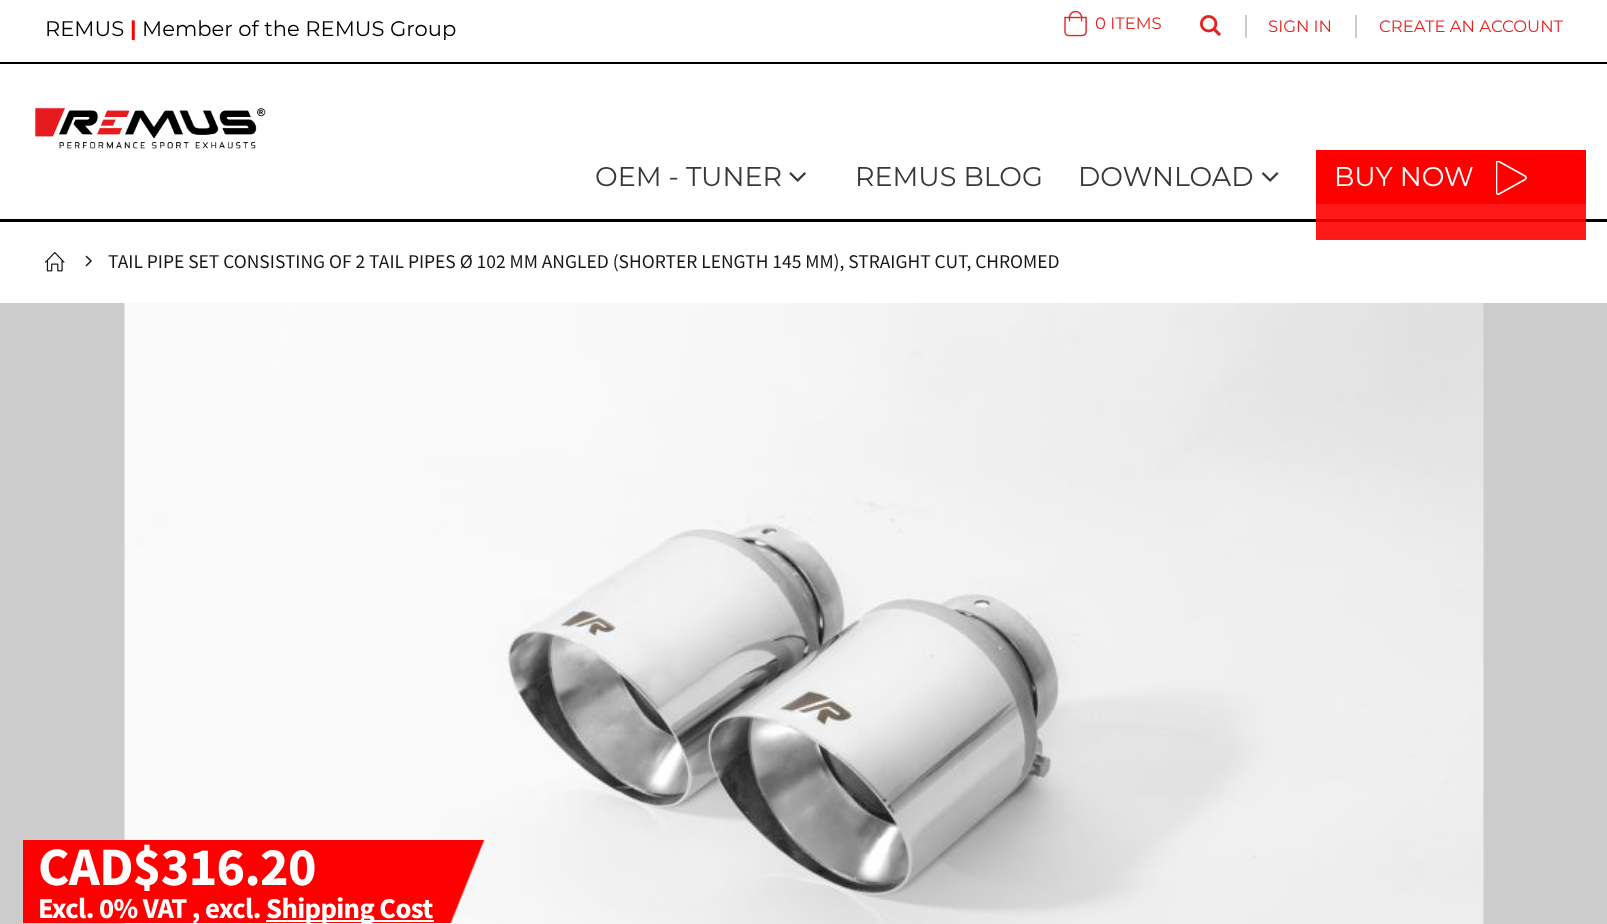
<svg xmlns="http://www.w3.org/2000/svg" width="1607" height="924">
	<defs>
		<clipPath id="clip1"><rect x="1496" y="161" width="31" height="34" /></clipPath>
	</defs>
	<rect width="100%" height="100%" fill="#CCCCCC" />
	<rect x="0" y="0" width="1607" height="219" fill="#FFFFFF" />
	<rect x="1316" y="204" width="270" height="15" fill="#FF1919" />
	<rect x="0" y="219" width="1607" height="3" fill="#000000" />
	<rect x="1316" y="219" width="270" height="3" fill="#E60000" />
	<rect x="0" y="62" width="1607" height="2" fill="#000000" />
	<text x="45" y="36" font-family="Montserrat" font-size="21.1" fill="#000000">REMUS</text>
	<text x="130" y="36" font-family="Montserrat" font-size="21.1" font-weight="700" fill="#FF0000">|</text>
	<text x="142" y="36" font-family="Montserrat" font-size="21.1" fill="#000000">Member of the REMUS Group</text>
	<image x="1064" y="10" width="23" height="27" href="assets/img1.png" />
	<text x="1095" y="29" font-family="Montserrat" font-size="16.5" fill="#E52421">0 ITEMS</text>
	<image x="1200" y="15" width="21" height="22" href="assets/img2.png" />
	<rect x="1245" y="15" width="2" height="23" fill="#CCCCCC" />
	<text x="1268" y="32" font-family="Montserrat" font-size="16.5" fill="#E52421">SIGN IN</text>
	<rect x="1355" y="15" width="2" height="23" fill="#CCCCCC" />
	<text x="1379" y="32" font-family="Montserrat" font-size="16.5" fill="#E52421">CREATE AN ACCOUNT</text>
	<image x="34" y="107" width="232" height="42" href="assets/img3.png" />
	<text x="595" y="186" font-family="Montserrat" font-size="27" fill="#3D3734">OEM - TUNER</text>
	<image x="789" y="172" width="17" height="10" href="assets/img4.png" />
	<g font-family="Montserrat" font-size="27" fill="#3D3734">
		<text x="855" y="186">REMUS BLOG</text>
		<text x="1078" y="186">DOWNLOAD</text>
	</g>
	<image x="1261" y="172" width="18" height="10" href="assets/img5.png" />
	<rect x="1316" y="150" width="270" height="54" fill="#FF0000" />
	<text x="1334" y="186" font-family="Montserrat" font-size="27" fill="#FFFFFF">BUY NOW</text>
	<g clip-path="url(#clip1)">
		<path d="M1499 194C1499 194 1496.5 195.5 1496.5 192V163.5C1496.5 163.5 1496.5 160 1499 161.5L1525 176C1525 176 1527.5 177.5 1525 179.5Z" fill="none" stroke="#FFFFFF" stroke-width="1.6" />
	</g>
	<rect x="0" y="222" width="1607" height="81" fill="#FFFFFF" />
	<rect x="1316" y="222" width="270" height="18" fill="#FF1919" />
	<image x="45" y="252" width="20" height="20" href="assets/img6.png" />
	<image x="85" y="255" width="7" height="12" href="assets/img7.png" />
	<text x="108" y="268" font-family="Source Sans Pro" font-size="19.5" fill="#171717">TAIL PIPE SET CONSISTING OF 2 TAIL PIPES Ø 102 MM ANGLED (SHORTER LENGTH 145 MM), STRAIGHT CUT, CHROMED</text>
	<image x="124" y="303" width="1360" height="621" href="assets/img8.png" />
	<rect x="23" y="840" width="411" height="83" fill="#FF0000" />
	<text x="38" y="885" font-family="Source Sans Pro" font-size="54" font-weight="700" letter-spacing="-0.6" fill="#FFFFFF">CAD$316.20</text>
	<text x="38" y="918" font-family="Source Sans Pro" font-size="28.75" font-weight="700" letter-spacing="-0.6" fill="#FFFFFF">Excl. 0% VAT , excl.</text>
	<rect x="266" y="920" width="168" height="2" fill="#FFFFFF" />
	<text x="266" y="918" font-family="Source Sans Pro" font-size="28.75" font-weight="700" letter-spacing="-0.6" fill="#FFFFFF">Shipping Cost</text>
</svg>
